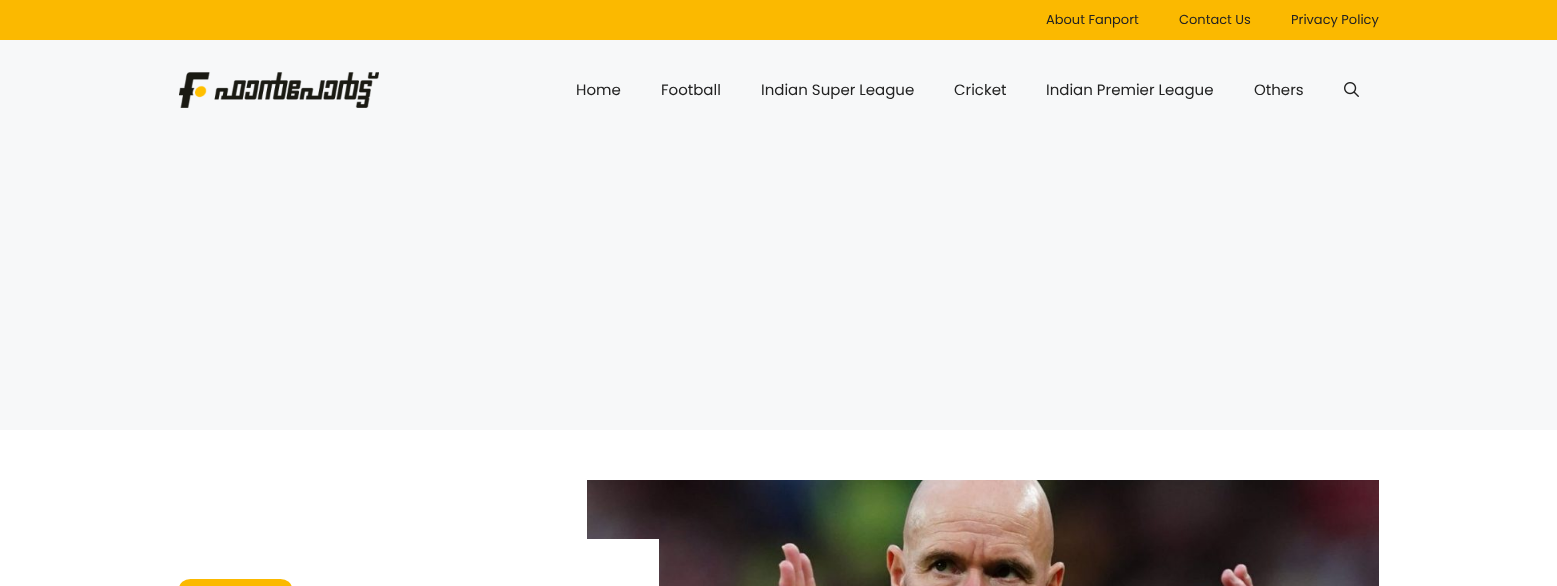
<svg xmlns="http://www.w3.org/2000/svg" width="1557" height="586">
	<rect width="100%" height="100%" fill="#FFFFFF" />
	<rect x="0" y="0" width="1557" height="40" fill="#FBB900" />
	<g font-family="Poppins" font-size="13" fill="#222222">
		<text x="1046" y="24">About Fanport</text>
		<text x="1179" y="24">Contact Us</text>
		<text x="1291" y="24">Privacy Policy</text>
	</g>
	<rect x="0" y="40" width="1557" height="390" fill="#F7F8F9" />
	<image x="179" y="72" width="200" height="36" href="assets/img1.png" />
	<g font-family="Poppins" font-size="15" fill="#222222">
		<text x="576" y="95">Home</text>
		<text x="661" y="95">Football</text>
		<text x="761" y="95">Indian Super League</text>
		<text x="954" y="95">Cricket</text>
		<text x="1046" y="95">Indian Premier League</text>
		<text x="1254" y="95">Others</text>
	</g>
	<image x="1344" y="82" width="15" height="15" href="assets/img2.png" />
	<image x="587" y="480" width="792" height="106" href="assets/img3.png" />
	<rect x="587" y="539" width="72" height="47" fill="#FFFFFF" />
	<rect x="179" y="579" width="113" height="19" rx="11.5" fill="#FBB900" />
</svg>
